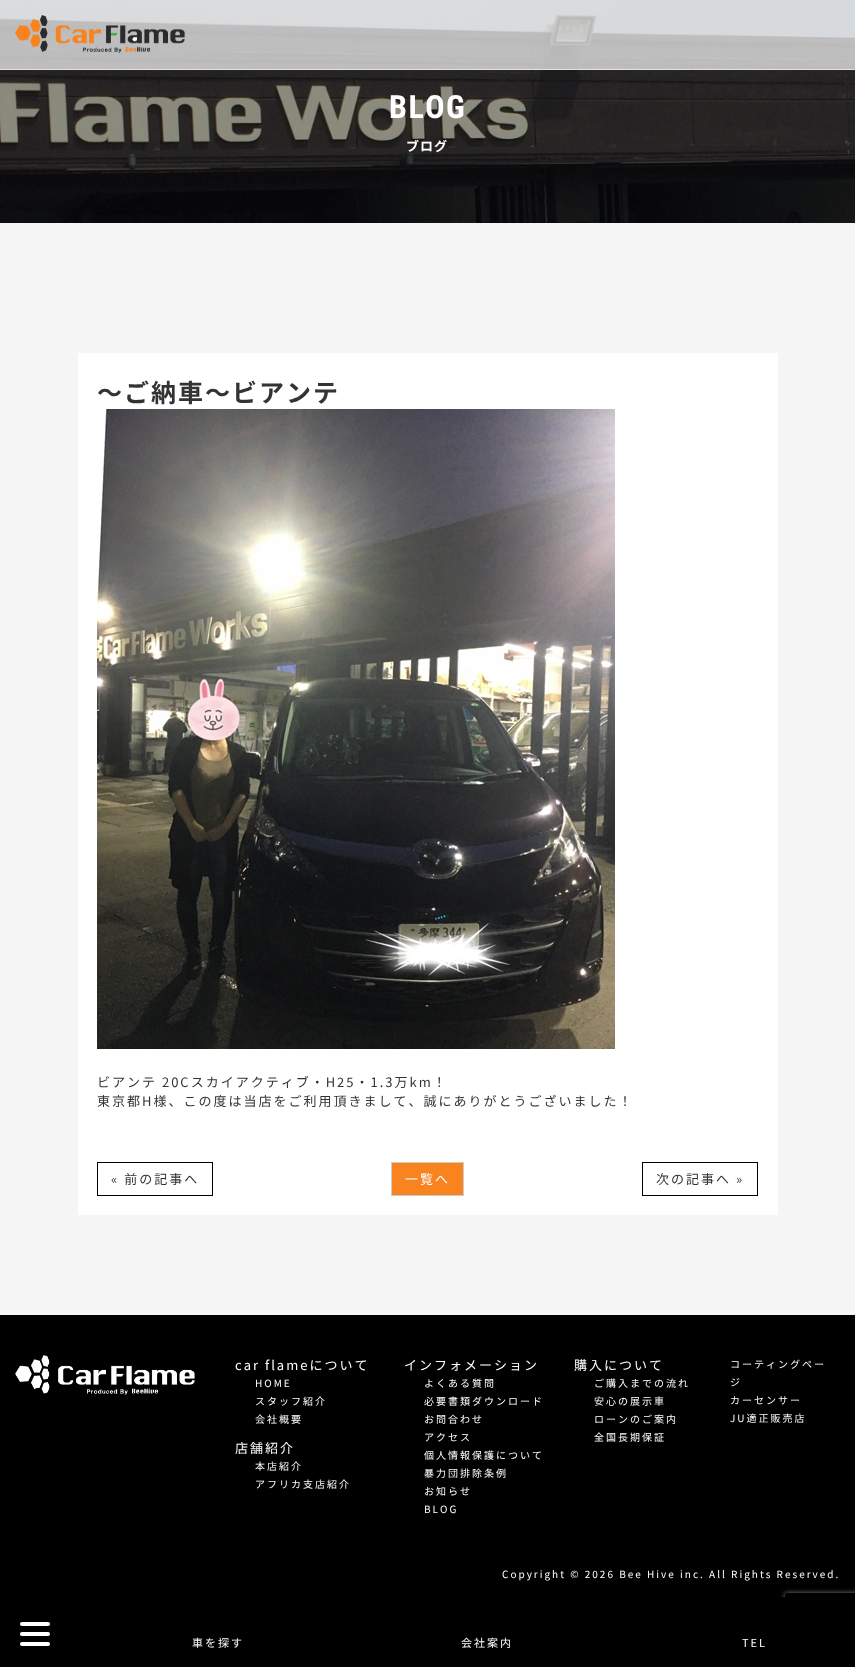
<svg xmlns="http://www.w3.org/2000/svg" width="855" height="1667">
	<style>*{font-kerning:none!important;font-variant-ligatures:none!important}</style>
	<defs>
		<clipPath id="clip1"><path d="M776 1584H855V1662H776ZM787 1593H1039C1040 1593 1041 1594 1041 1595V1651C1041 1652 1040 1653 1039 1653H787C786 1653 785 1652 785 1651V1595C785 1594 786 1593 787 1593Z" clip-rule="evenodd" /></clipPath>
	</defs>
	<rect width="100%" height="100%" fill="#F5F5F5" />
	<image x="0" y="0" width="855" height="223" href="assets/img2.png" />
	<rect x="0" y="0" width="855" height="69" fill="#FFFFFF" fill-opacity="0.7" />
	<rect x="0" y="69" width="855" height="1" fill="#E2E2E2" />
	<image x="15" y="15" width="170" height="38" href="assets/img1.png" />
	<text x="389" y="118" font-family="Roboto Condensed" font-size="32" font-weight="700" letter-spacing="1.5" fill="#FFFFFF">BLOG</text>
	<text x="406" y="151" font-family="Noto Sans JP" font-size="13" font-weight="700" letter-spacing="1" fill="#FFFFFF">ブログ</text>
	<rect x="78" y="353" width="700" height="862" fill="#FFFFFF" />
	<text x="97" y="402" font-family="Noto Sans JP" font-size="25" font-weight="700" letter-spacing="2" fill="#333333">～ご納車～ビアンテ</text>
	<image x="97" y="409" width="518" height="640" href="assets/img3.png" />
	<g font-family="Noto Sans JP" font-size="13" letter-spacing="2" fill="#333333">
		<text x="97" y="1087">ビアンテ 20Cスカイアクティブ・H25・1.3万km！</text>
		<text x="97" y="1106">東京都H様、この度は当店をご利用頂きまして、誠にありがとうございました！</text>
	</g>
	<rect x="97.5" y="1162.5" width="115" height="33" fill="none" stroke="#000000" />
	<text x="111" y="1184" font-family="Noto Sans JP" font-size="13" letter-spacing="2" fill="#333333">« 前の記事へ</text>
	<rect x="391.5" y="1162.5" width="72" height="33" fill="#F9831F" stroke="#CCCCCC" />
	<text x="405" y="1184" font-family="Noto Sans JP" font-size="13" letter-spacing="2" fill="#FFFFFF">一覧へ</text>
	<rect x="642.5" y="1162.5" width="115" height="33" fill="none" stroke="#000000" />
	<text x="656" y="1184" font-family="Noto Sans JP" font-size="13" letter-spacing="2" fill="#333333">次の記事へ »</text>
	<rect x="0" y="1315" width="855" height="282" fill="#000000" />
	<image x="15" y="1355" width="180" height="40" href="assets/img4.png" />
	<text x="235" y="1370" font-family="Noto Sans JP" font-size="13" letter-spacing="2" fill="#FFFFFF">car flameについて</text>
	<g font-family="Noto Sans JP" font-size="10" letter-spacing="2" fill="#FFFFFF">
		<text x="255" y="1387">HOME</text>
		<text x="255" y="1405">スタッフ紹介</text>
		<text x="255" y="1423">会社概要</text>
	</g>
	<text x="404" y="1370" font-family="Noto Sans JP" font-size="13" letter-spacing="2" fill="#FFFFFF">インフォメーション</text>
	<g font-family="Noto Sans JP" font-size="10" letter-spacing="2" fill="#FFFFFF">
		<text x="424" y="1387">よくある質問</text>
		<text x="424" y="1405">必要書類ダウンロード</text>
		<text x="424" y="1423">お問合わせ</text>
		<text x="424" y="1441">アクセス</text>
		<text x="424" y="1459">個人情報保護について</text>
		<text x="424" y="1477">暴力団排除条例</text>
		<text x="424" y="1495">お知らせ</text>
		<text x="424" y="1513">BLOG</text>
	</g>
	<text x="574" y="1370" font-family="Noto Sans JP" font-size="13" letter-spacing="2" fill="#FFFFFF">購入について</text>
	<g font-family="Noto Sans JP" font-size="10" letter-spacing="2" fill="#FFFFFF">
		<text x="594" y="1387">ご購入までの流れ</text>
		<text x="594" y="1405">安心の展示車</text>
		<text x="594" y="1423">ローンのご案内</text>
		<text x="594" y="1441">全国長期保証</text>
	</g>
	<text x="235" y="1453" font-family="Noto Sans JP" font-size="13" letter-spacing="2" fill="#FFFFFF">店舗紹介</text>
	<g font-family="Noto Sans JP" font-size="10" letter-spacing="2" fill="#FFFFFF">
		<text x="255" y="1470">本店紹介</text>
		<text x="255" y="1488">アフリカ支店紹介</text>
		<text x="730" y="1368">コーティングペー</text>
		<text x="730" y="1386">ジ</text>
		<text x="730" y="1404">カーセンサー</text>
		<text x="730" y="1422">JU適正販売店</text>
		<text x="502" y="1578">Copyright © 2026 Bee Hive inc. All Rights Reserved.</text>
	</g>
	<g clip-path="url(#clip1)">
		<rect x="785" y="1593" width="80" height="60" rx="2" fill="#808080" filter="blur(2.5px)" />
	</g>
	<rect x="0" y="1597" width="855" height="70" fill="#000000" />
	<rect x="20" y="1622" width="30" height="4" rx="2" fill="#FFFFFF" />
	<rect x="20" y="1632" width="30" height="4" rx="2" fill="#FFFFFF" />
	<rect x="20" y="1642" width="30" height="4" rx="2" fill="#FFFFFF" />
	<g font-family="Noto Sans JP" font-size="11" letter-spacing="2" fill="#FFFFFF">
		<text x="192" y="1647">車を探す</text>
		<text x="461" y="1647">会社案内</text>
		<text x="742" y="1647">TEL</text>
	</g>
</svg>
